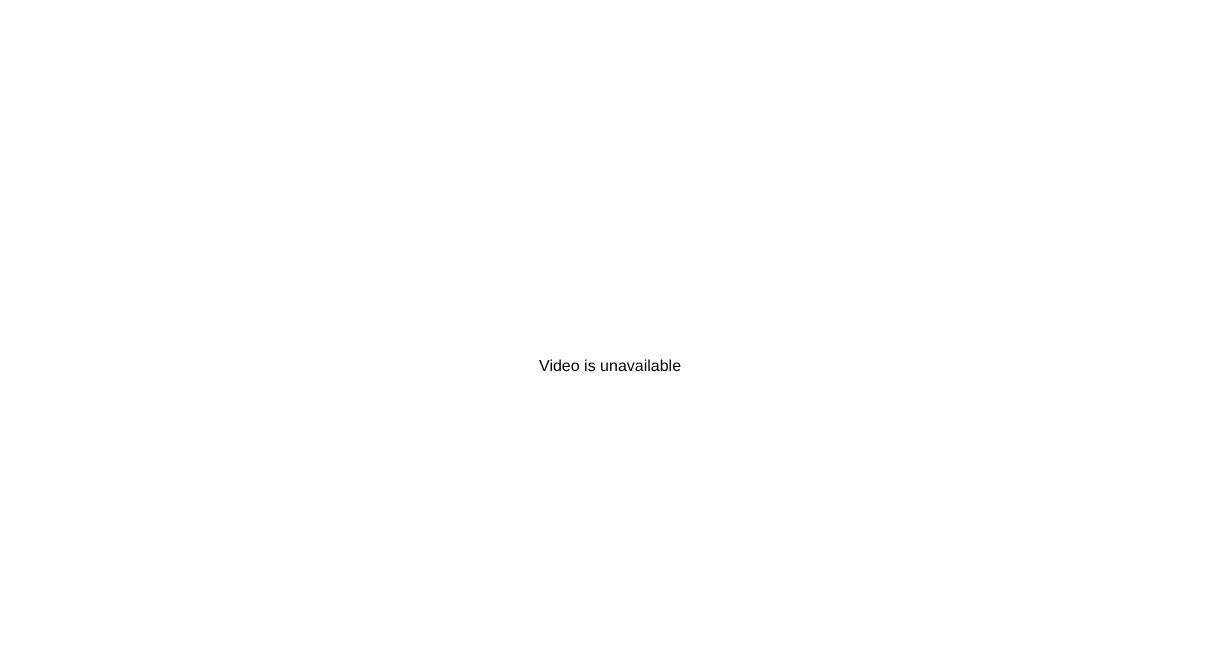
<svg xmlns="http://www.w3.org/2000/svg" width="1220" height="667">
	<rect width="100%" height="100%" fill="#FFFFFF" />
	<text x="539" y="371" font-family="Liberation Sans" font-size="16" fill="#000000">Video is unavailable</text>
</svg>
